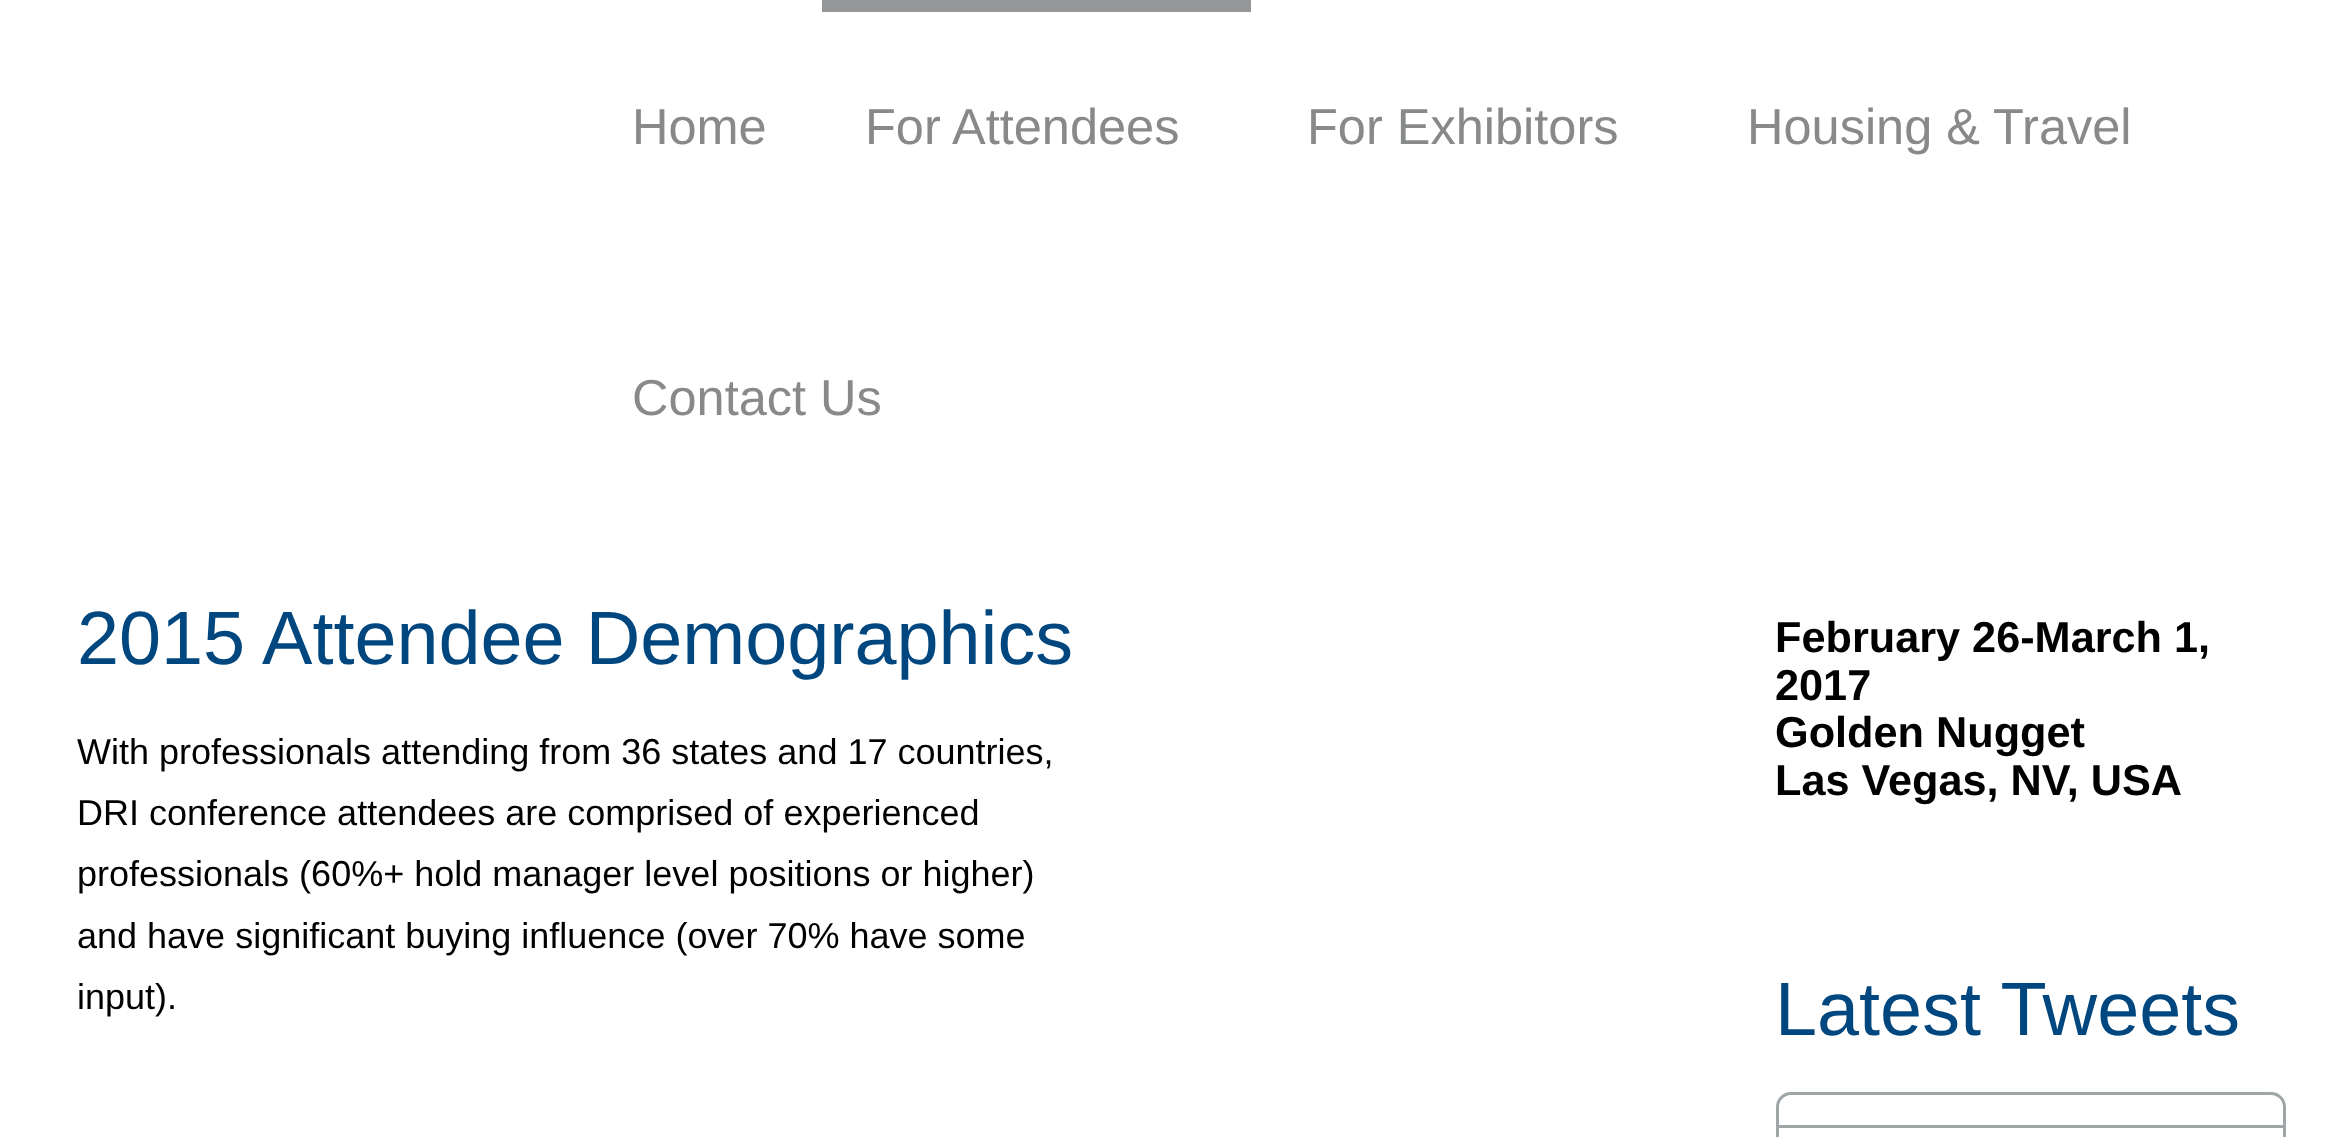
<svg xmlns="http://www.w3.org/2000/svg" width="2330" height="1137">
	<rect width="100%" height="100%" fill="#FFFFFF" />
	<text x="632" y="144" font-family="Liberation Sans" font-size="50.5" fill="#87898A">Home</text>
	<rect x="822" y="0" width="429" height="12" fill="#949697" />
	<g font-family="Liberation Sans" font-size="50.5" fill="#87898A">
		<text x="865" y="144">For Attendees</text>
		<text x="1307" y="144">For Exhibitors</text>
		<text x="1747" y="144">Housing &amp; Travel</text>
		<text x="632" y="415">Contact Us</text>
	</g>
	<text x="77" y="664" font-family="Liberation Sans" font-size="75.6" fill="#00477F">2015 Attendee Demographics</text>
	<g font-family="Liberation Sans" font-size="36" fill="#000000">
		<text x="77" y="764">With professionals attending from 36 states and 17 countries,</text>
		<text x="77" y="825">DRI conference attendees are comprised of experienced</text>
		<text x="77" y="886">professionals (60%+ hold manager level positions or higher)</text>
		<text x="77" y="948">and have significant buying influence (over 70% have some</text>
		<text x="77" y="1009">input).</text>
	</g>
	<g font-family="Liberation Sans" font-size="43.25" font-weight="700" fill="#000000">
		<text x="1775" y="652">February 26-March 1,</text>
		<text x="1775" y="700">2017</text>
		<text x="1775" y="747">Golden Nugget</text>
		<text x="1775" y="795">Las Vegas, NV, USA</text>
	</g>
	<text x="1775" y="1035" font-family="Liberation Sans" font-size="75.6" fill="#00477F">Latest Tweets</text>
	<rect x="1777.5" y="1093.5" width="507" height="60" rx="13.5" fill="none" stroke="#A0A5A8" stroke-width="3" />
	<rect x="1779" y="1125" width="504" height="3" fill="#A0A5A8" />
</svg>
